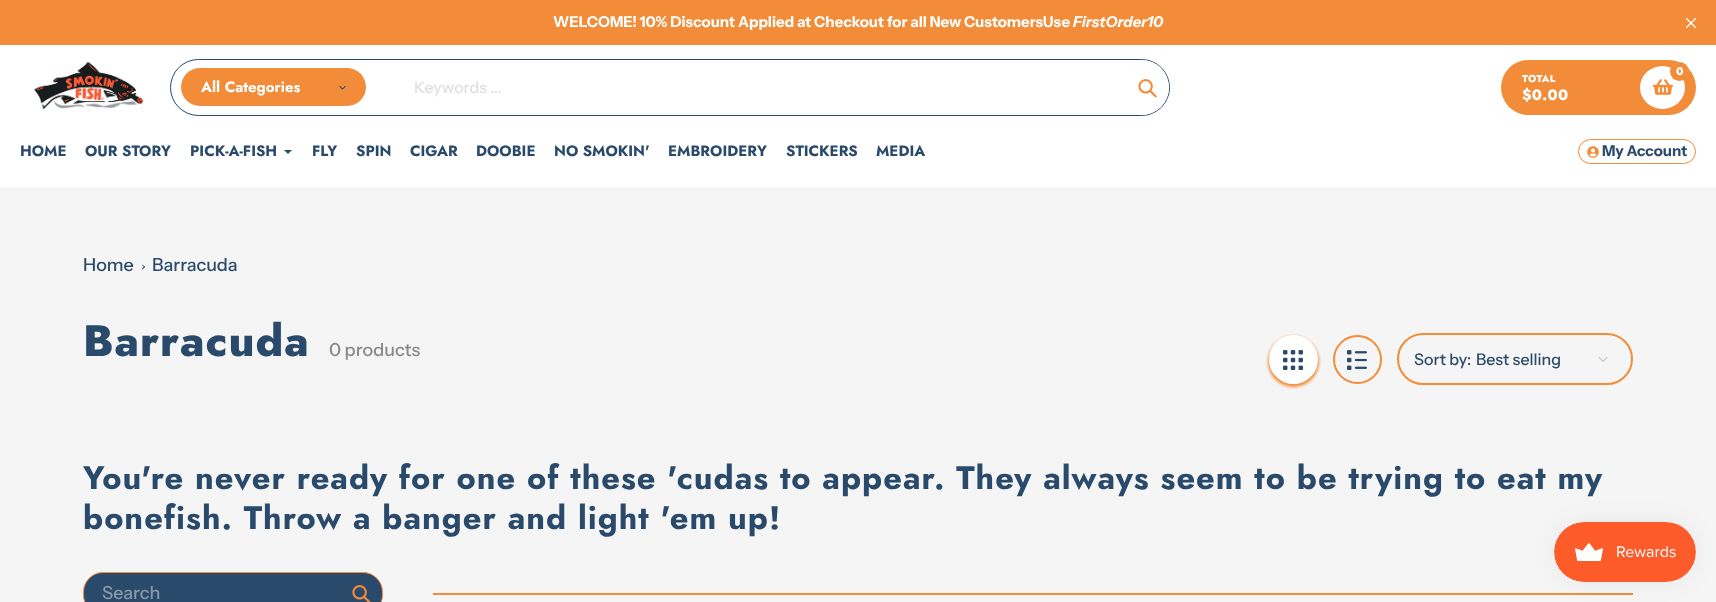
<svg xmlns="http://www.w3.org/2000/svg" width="1716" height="602">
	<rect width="100%" height="100%" fill="#F5F5F5" />
	<rect x="0" y="0" width="1716" height="45" fill="#F28C38" />
	<text x="553" y="27" font-family="Instrument Sans" font-size="15" font-weight="700" fill="#FFFFFF">WELCOME! 10% Discount Applied at Checkout for all New CustomersUse</text>
	<text x="1073" y="27" font-family="Instrument Sans" font-size="15" font-weight="700" font-style="italic" fill="#FFFFFF">FirstOrder10</text>
	<image x="1686" y="18" width="10" height="10" href="assets/img1.png" />
	<rect x="0" y="45" width="1716" height="142" fill="#FFFFFF" />
	<image x="34" y="61" width="110" height="49" href="assets/img2.png" />
	<rect x="170.5" y="59.5" width="999" height="56" rx="28" fill="none" stroke="#2A4A6B" />
	<rect x="181" y="68" width="185" height="38" rx="19" fill="#F28C38" />
	<text x="201" y="92" font-family="Jost" font-size="15" font-weight="700" fill="#FFFFFF">All Categories</text>
	<image x="339" y="85" width="7" height="5" href="assets/img3.png" />
	<rect x="386" y="60" width="783" height="55" rx="27.5" fill="#FFFFFF" />
	<text x="414" y="93" font-family="Instrument Sans" font-size="16" font-weight="500" fill="#E0E0E0">Keywords ...</text>
	<image x="1138" y="79" width="19" height="19" href="assets/img4.png" />
	<rect x="1501" y="60" width="195" height="55" rx="27.5" fill="#F28C38" />
	<ellipse cx="1662.5" cy="87.5" rx="22.5" ry="21.5" fill="#FFFFFF" />
	<image x="1653" y="79" width="20" height="16" href="assets/img5.png" />
	<circle cx="1679.5" cy="71.5" r="9.5" fill="#F28C38" />
	<text x="1676" y="75" font-family="Jost" font-size="11" font-weight="800" fill="#FFFFFF">0</text>
	<text x="1522" y="82" font-family="Jost" font-size="10" font-weight="800" letter-spacing="0.5" fill="#FFFFFF">TOTAL</text>
	<text x="1522" y="100" font-family="Jost" font-size="15" font-weight="800" letter-spacing="0.25" fill="#FFFFFF">$0.00</text>
	<g font-family="Jost" font-size="15" font-weight="700" fill="#2A4A6B">
		<text x="20" y="156">HOME</text>
		<text x="85" y="156">OUR STORY</text>
		<text x="190" y="156">PICK-A-FISH</text>
	</g>
	<path d="M292 150L288 154L284 150" fill="#2A4A6B" />
	<g font-family="Jost" font-size="15" font-weight="700" fill="#2A4A6B">
		<text x="312" y="156">FLY</text>
		<text x="356" y="156">SPIN</text>
		<text x="410" y="156">CIGAR</text>
		<text x="476" y="156">DOOBIE</text>
		<text x="554" y="156">NO SMOKIN'</text>
		<text x="668" y="156">EMBROIDERY</text>
		<text x="786" y="156">STICKERS</text>
		<text x="876" y="156">MEDIA</text>
	</g>
	<rect x="1578.5" y="139.5" width="117" height="24" rx="12" fill="none" stroke="#F28C38" />
	<image x="1587" y="146" width="12" height="12" href="assets/img6.png" />
	<text x="1602" y="156" font-family="Instrument Sans" font-size="15" font-weight="700" fill="#2A4A6B">My Account</text>
	<text x="83" y="271" font-family="Instrument Sans" font-size="18" font-weight="500" fill="#2A4A6B">Home</text>
	<path d="M142.5 264.5L145 267L144.5 267.5L142 265Z" fill="#2A4A6B" />
	<path d="M144.5 266L145 267L142.5 269.5L142 268.5Z" fill="#2A4A6B" />
	<text x="152" y="271" font-family="Instrument Sans" font-size="18" font-weight="500" fill="#2A4A6B">Barracuda</text>
	<text x="83" y="356" font-family="Jost" font-size="44" font-weight="800" letter-spacing="1" fill="#2A4A6B">Barracuda</text>
	<text x="329" y="356" font-family="Instrument Sans" font-size="18" font-weight="500" fill="#888888">0 products</text>
	<rect x="1268" y="336" width="51" height="51" rx="25.5" fill="#F28C38" filter="blur(1.5px)" />
	<circle cx="1293.5" cy="359.5" r="24.5" fill="#FFFFFF" />
	<image x="1283" y="350" width="20" height="20" href="assets/img7.png" />
	<circle cx="1357.5" cy="359.5" r="23.5" fill="none" stroke="#F28C38" stroke-width="2" />
	<image x="1347" y="350" width="20" height="20" href="assets/img8.png" />
	<rect x="1398" y="334" width="234" height="50" rx="25" fill="none" stroke="#F28C38" stroke-width="2" />
	<g font-family="Instrument Sans" font-size="16" font-weight="500" fill="#2A4A6B">
		<text x="1414" y="365">Sort by:</text>
		<text x="1476" y="365">Best selling</text>
	</g>
	<image x="1598" y="356" width="10" height="6" href="assets/img9.png" />
	<g font-family="Jost" font-size="32.65" font-weight="700" letter-spacing="1" fill="#2A4A6B">
		<text x="83" y="489">You're never ready for one of these 'cudas to appear. They always seem to be trying to eat my</text>
		<text x="83" y="529">bonefish. Throw a banger and light 'em up!</text>
	</g>
	<rect x="83.5" y="572.5" width="299" height="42" rx="19.5" fill="#2A4A6B" stroke="#F28C38" />
	<text x="102" y="599" font-family="Instrument Sans" font-size="18" font-weight="500" fill="#8B98A5">Search</text>
	<image x="352" y="585" width="19" height="17" href="assets/img10.png" />
	<rect x="433" y="593" width="1200" height="2" fill="#F28C38" />
	<rect x="1554" y="522" width="142" height="60" rx="30" fill="#000000" fill-opacity="0.05" filter="blur(12.5px)" />
	<image x="1554" y="522" width="142" height="60" href="assets/img11.png" />
</svg>
